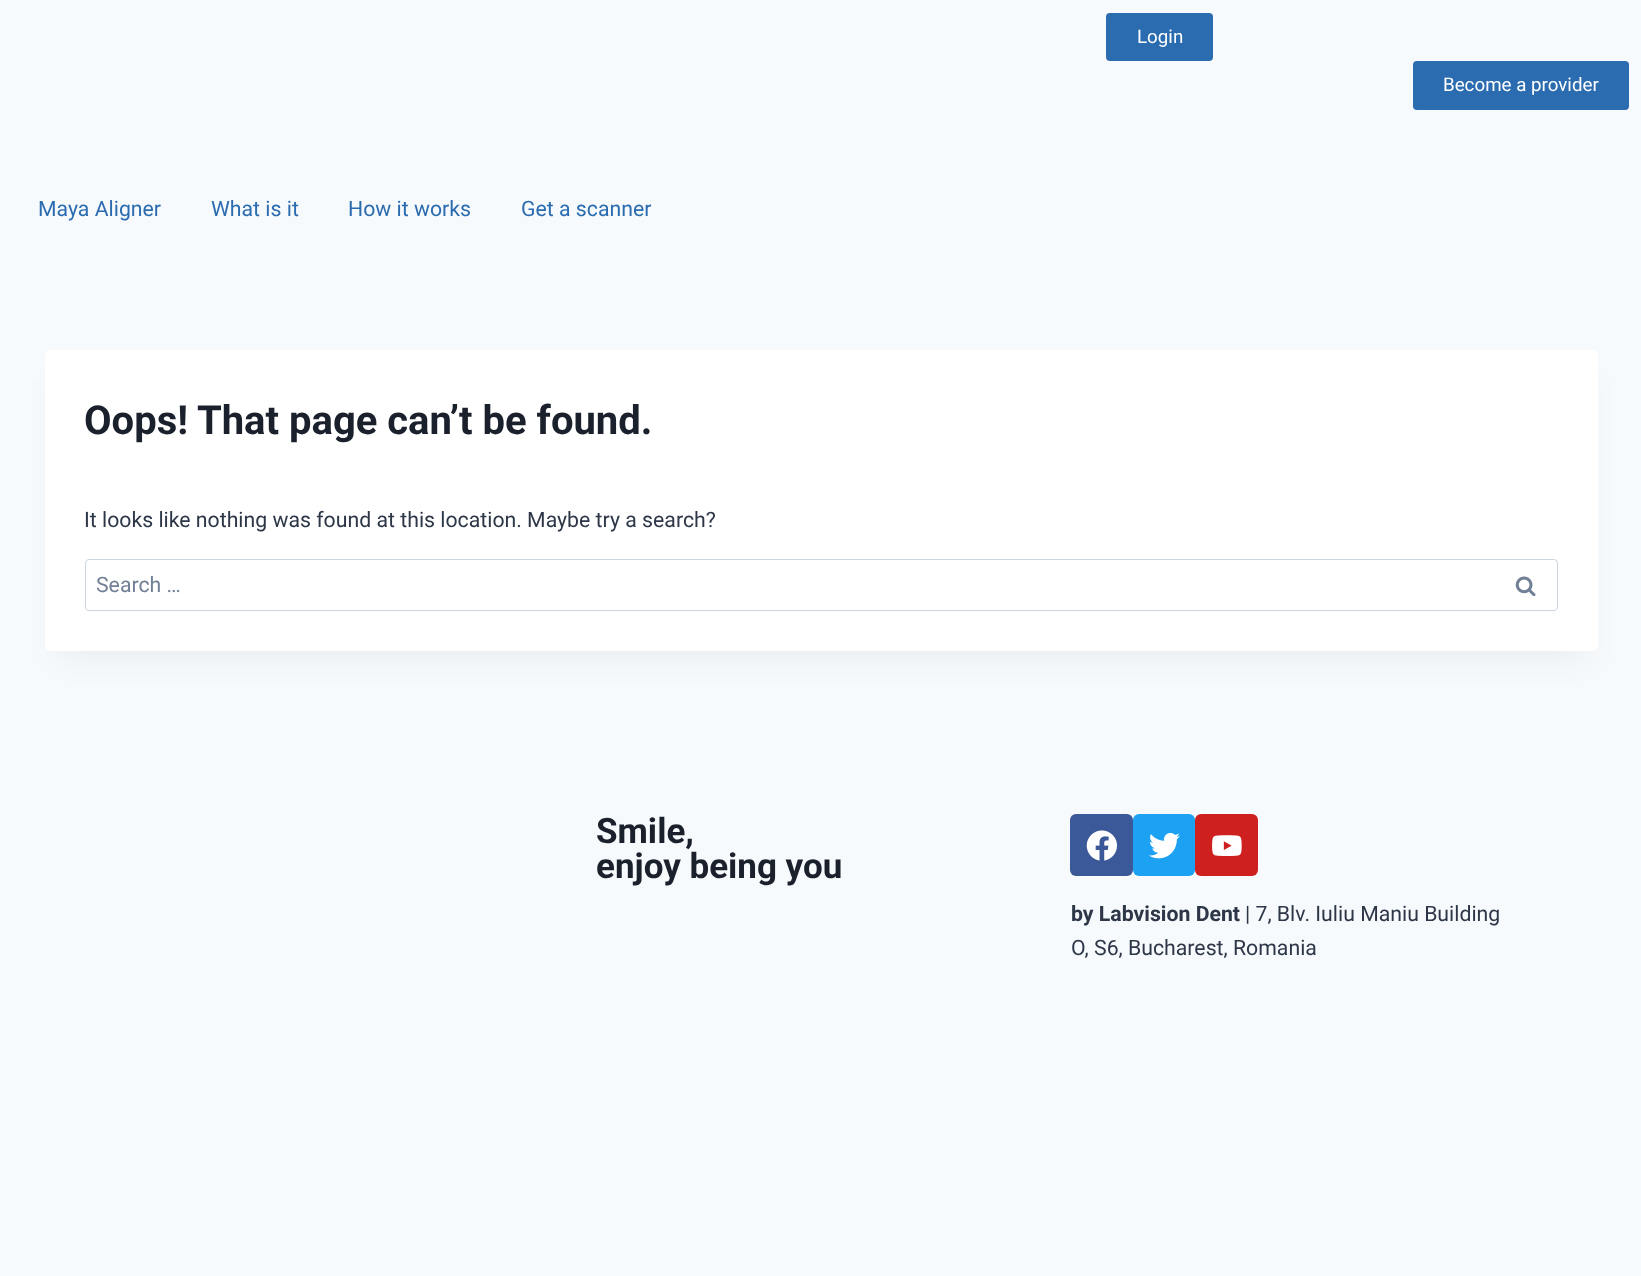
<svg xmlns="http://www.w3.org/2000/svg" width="1641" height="1276">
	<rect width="100%" height="100%" fill="#F7FAFC" />
	<rect x="1106" y="13" width="107" height="48" rx="4" fill="#2B6CB0" />
	<text x="1137" y="43" font-family="Roboto" font-size="18.75" fill="#FFFFFF">Login</text>
	<rect x="1413" y="61" width="216" height="49" rx="4" fill="#2B6CB0" />
	<text x="1443" y="91" font-family="Roboto" font-size="18.75" fill="#FFFFFF">Become a provider</text>
	<g font-family="Roboto" font-size="21.25" fill="#2B6CB0">
		<text x="38" y="216">Maya Aligner</text>
		<text x="211" y="216">What is it</text>
		<text x="348" y="216">How it works</text>
		<text x="521" y="216">Get a scanner</text>
	</g>
	<rect x="58" y="381" width="1527" height="277" fill="#000000" fill-opacity="0.05" filter="blur(15.5px)" />
	<rect x="45" y="350" width="1553" height="301" rx="5" fill="#FFFFFF" />
	<text x="84" y="434" font-family="Roboto" font-size="40" font-weight="700" fill="#1A202C">Oops! That page can’t be found.</text>
	<text x="84" y="527" font-family="Roboto" font-size="21.25" fill="#2D3748">It looks like nothing was found at this location. Maybe try a search?</text>
	<rect x="85.5" y="559.5" width="1472" height="51" rx="3.5" fill="none" stroke="#CBD5E0" />
	<text x="96" y="592" font-family="Roboto" font-size="21.25" fill="#718096">Search …</text>
	<image x="1515" y="576" width="21" height="20" href="assets/img1.png" />
	<g font-family="Roboto" font-size="35" font-weight="700" fill="#1A202C">
		<text x="596" y="843">Smile,</text>
		<text x="596" y="878">enjoy being you</text>
	</g>
	<rect x="1070" y="814" width="63" height="62" rx="6" fill="#3B5998" />
	<image x="1086" y="830" width="31" height="31" href="assets/img2.png" />
	<rect x="1133" y="814" width="62" height="62" rx="6" fill="#1DA1F2" />
	<image x="1149" y="832" width="31" height="27" href="assets/img3.png" />
	<rect x="1195" y="814" width="63" height="62" rx="6" fill="#CD201F" />
	<image x="1212" y="835" width="30" height="22" href="assets/img4.png" />
	<text x="1071" y="921" font-family="Roboto" font-size="21.25" font-weight="700" fill="#2D3748">by Labvision Dent</text>
	<g font-family="Roboto" font-size="21.25" fill="#2D3748">
		<text x="1245" y="921">| 7, Blv. Iuliu Maniu Building</text>
		<text x="1071" y="955">O, S6, Bucharest, Romania</text>
	</g>
</svg>
